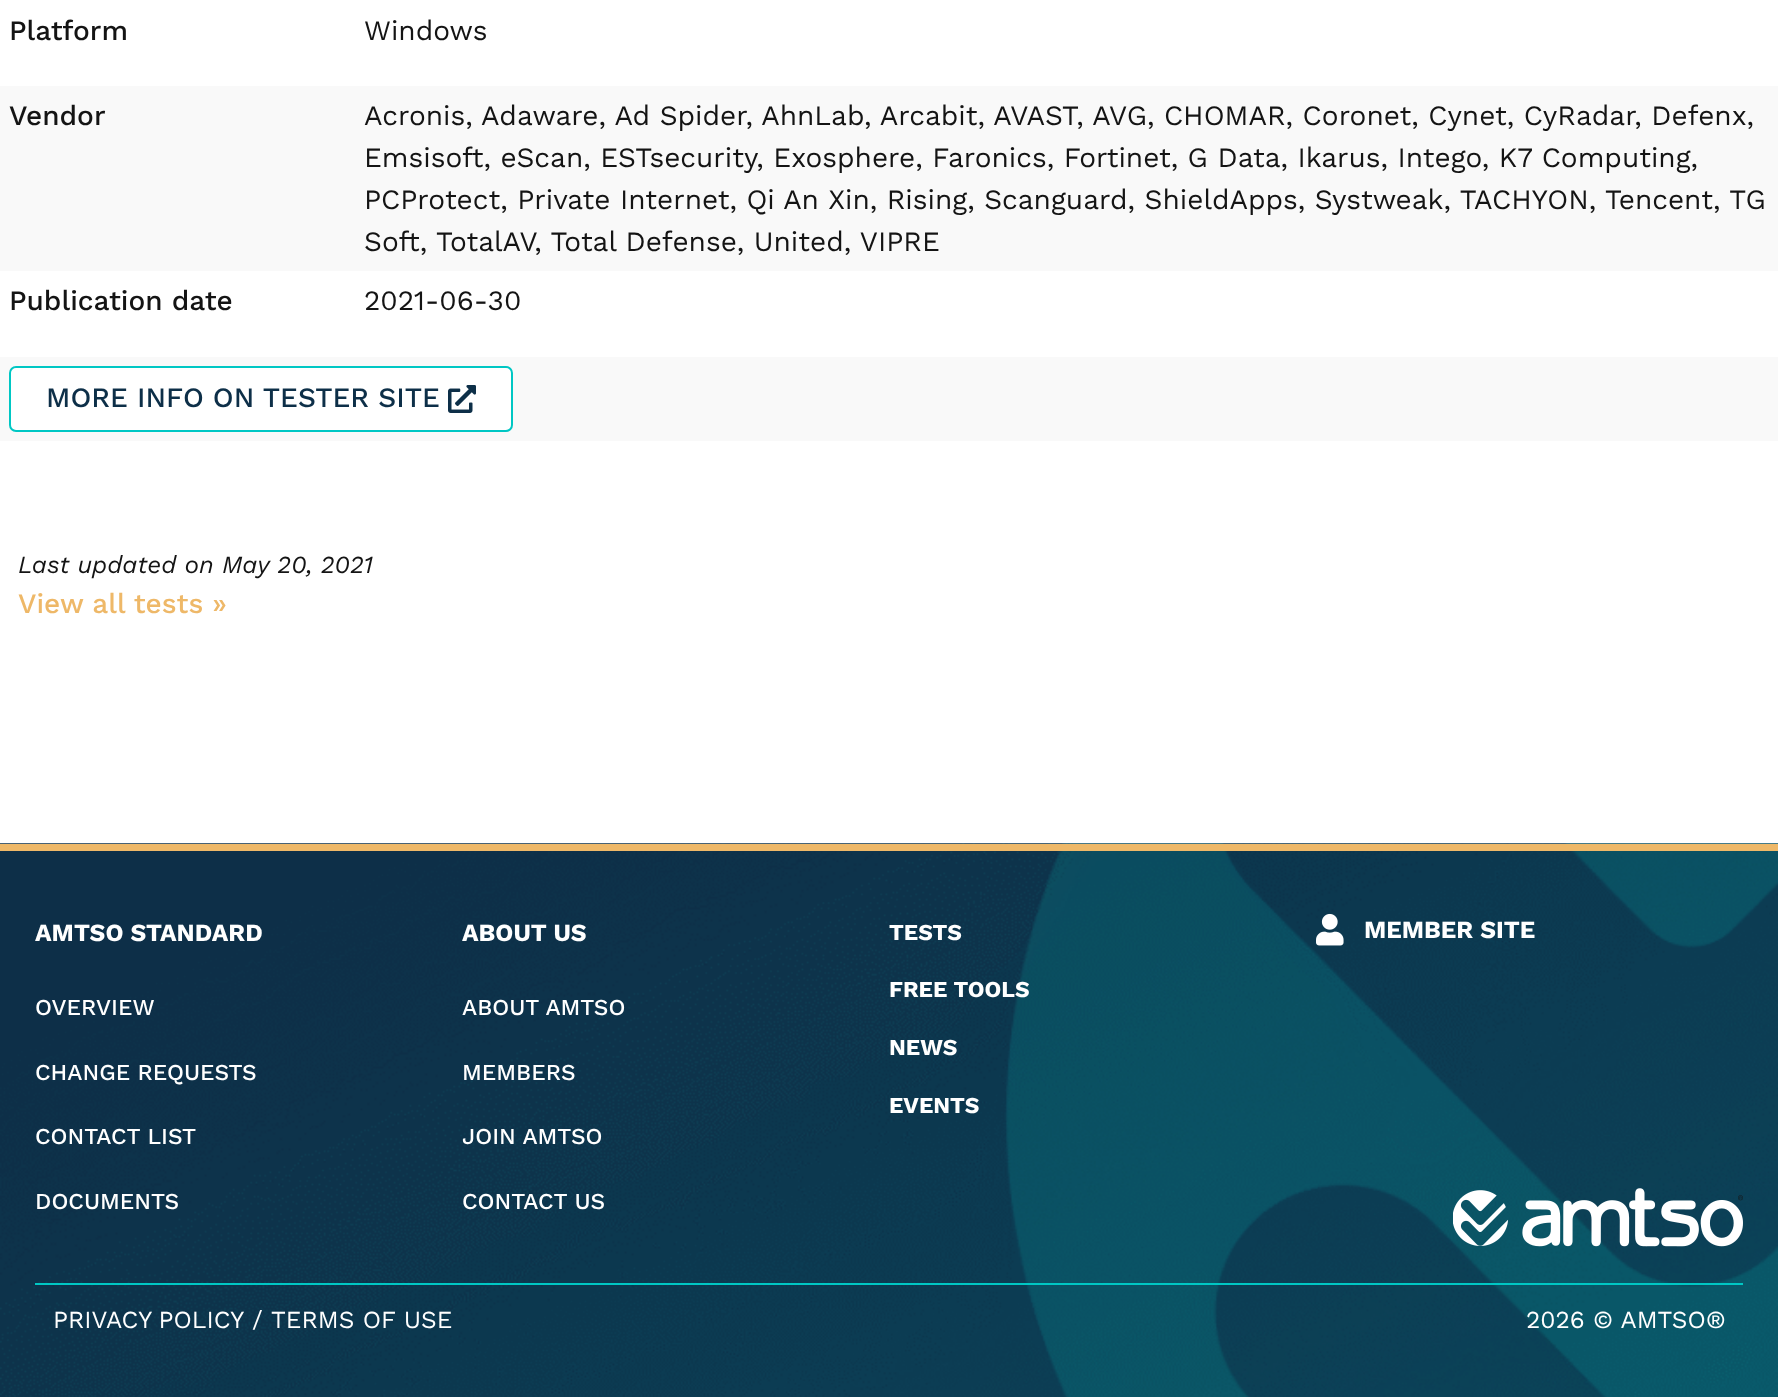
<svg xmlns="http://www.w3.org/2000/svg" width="1778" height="1397">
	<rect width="100%" height="100%" fill="#FFFFFF" />
	<text x="9" y="40" font-family="Work Sans" font-size="28" font-weight="500" fill="#141414">Platform</text>
	<text x="364" y="40" font-family="Work Sans" font-size="28" fill="#141414">Windows</text>
	<rect x="0" y="86" width="1778" height="185" fill="#F9F9F9" />
	<text x="9" y="125" font-family="Work Sans" font-size="28" font-weight="500" fill="#141414">Vendor</text>
	<g font-family="Work Sans" font-size="28" fill="#141414">
		<text x="364" y="125">Acronis, Adaware, Ad Spider, AhnLab, Arcabit, AVAST, AVG, CHOMAR, Coronet, Cynet, CyRadar, Defenx,</text>
		<text x="364" y="167">Emsisoft, eScan, ESTsecurity, Exosphere, Faronics, Fortinet, G Data, Ikarus, Intego, K7 Computing,</text>
		<text x="364" y="209">PCProtect, Private Internet, Qi An Xin, Rising, Scanguard, ShieldApps, Systweak, TACHYON, Tencent, TG</text>
		<text x="364" y="251">Soft, TotalAV, Total Defense, United, VIPRE</text>
	</g>
	<text x="9" y="310" font-family="Work Sans" font-size="28" font-weight="500" fill="#141414">Publication date</text>
	<text x="364" y="310" font-family="Work Sans" font-size="28" fill="#141414">2021-06-30</text>
	<rect x="0" y="357" width="1778" height="84" fill="#F9F9F9" />
	<rect x="10" y="367" width="502" height="64" rx="6" fill="#FFFFFF" stroke="#00C7C4" stroke-width="2" />
	<text x="46" y="407" font-family="Work Sans" font-size="28" font-weight="500" fill="#0D2F48">MORE INFO ON TESTER SITE</text>
	<image x="448" y="385" width="28" height="28" href="assets/img1.png" />
	<text x="18" y="573" font-family="Work Sans" font-size="24.5" font-style="italic" fill="#141414">Last updated on May 20, 2021</text>
	<text x="18" y="613" font-family="Work Sans" font-size="28" font-weight="500" fill="#EEB868">View all tests »</text>
	<image x="0" y="843" width="1778" height="554" href="assets/img2.png" />
	<rect x="0" y="844" width="1778" height="7" fill="#EEB868" />
	<text x="35" y="941" font-family="Work Sans" font-size="24.5" font-weight="700" fill="#FFFFFF">AMTSO STANDARD</text>
	<g font-family="Work Sans" font-size="22.75" font-weight="500" fill="#FFFFFF">
		<text x="35" y="1015">OVERVIEW</text>
		<text x="35" y="1080">CHANGE REQUESTS</text>
		<text x="35" y="1144">CONTACT LIST</text>
		<text x="35" y="1209">DOCUMENTS</text>
	</g>
	<text x="462" y="941" font-family="Work Sans" font-size="24.5" font-weight="700" fill="#FFFFFF">ABOUT US</text>
	<g font-family="Work Sans" font-size="22.75" font-weight="500" fill="#FFFFFF">
		<text x="462" y="1015">ABOUT AMTSO</text>
		<text x="462" y="1080">MEMBERS</text>
		<text x="462" y="1144">JOIN AMTSO</text>
		<text x="462" y="1209">CONTACT US</text>
	</g>
	<g font-family="Work Sans" font-size="22.75" font-weight="700" fill="#FFFFFF">
		<text x="889" y="940">TESTS</text>
		<text x="889" y="997">FREE TOOLS</text>
		<text x="889" y="1055">NEWS</text>
		<text x="889" y="1113">EVENTS</text>
	</g>
	<image x="1316" y="913" width="28" height="33" href="assets/img3.png" />
	<text x="1364" y="938" font-family="Work Sans" font-size="24.5" font-weight="700" fill="#FFFFFF">MEMBER SITE</text>
	<image x="1453" y="1188" width="290" height="59" href="assets/img4.png" />
	<rect x="35" y="1283" width="1708" height="2" fill="#00C7C4" />
	<g font-family="Work Sans" font-size="24.5" fill="#FFFFFF">
		<text x="53" y="1328" word-spacing="-1">PRIVACY POLICY</text>
		<text x="252" y="1328">/</text>
		<text x="271" y="1328">TERMS OF USE</text>
		<text x="1526" y="1328">2026 © AMTSO®</text>
	</g>
</svg>
